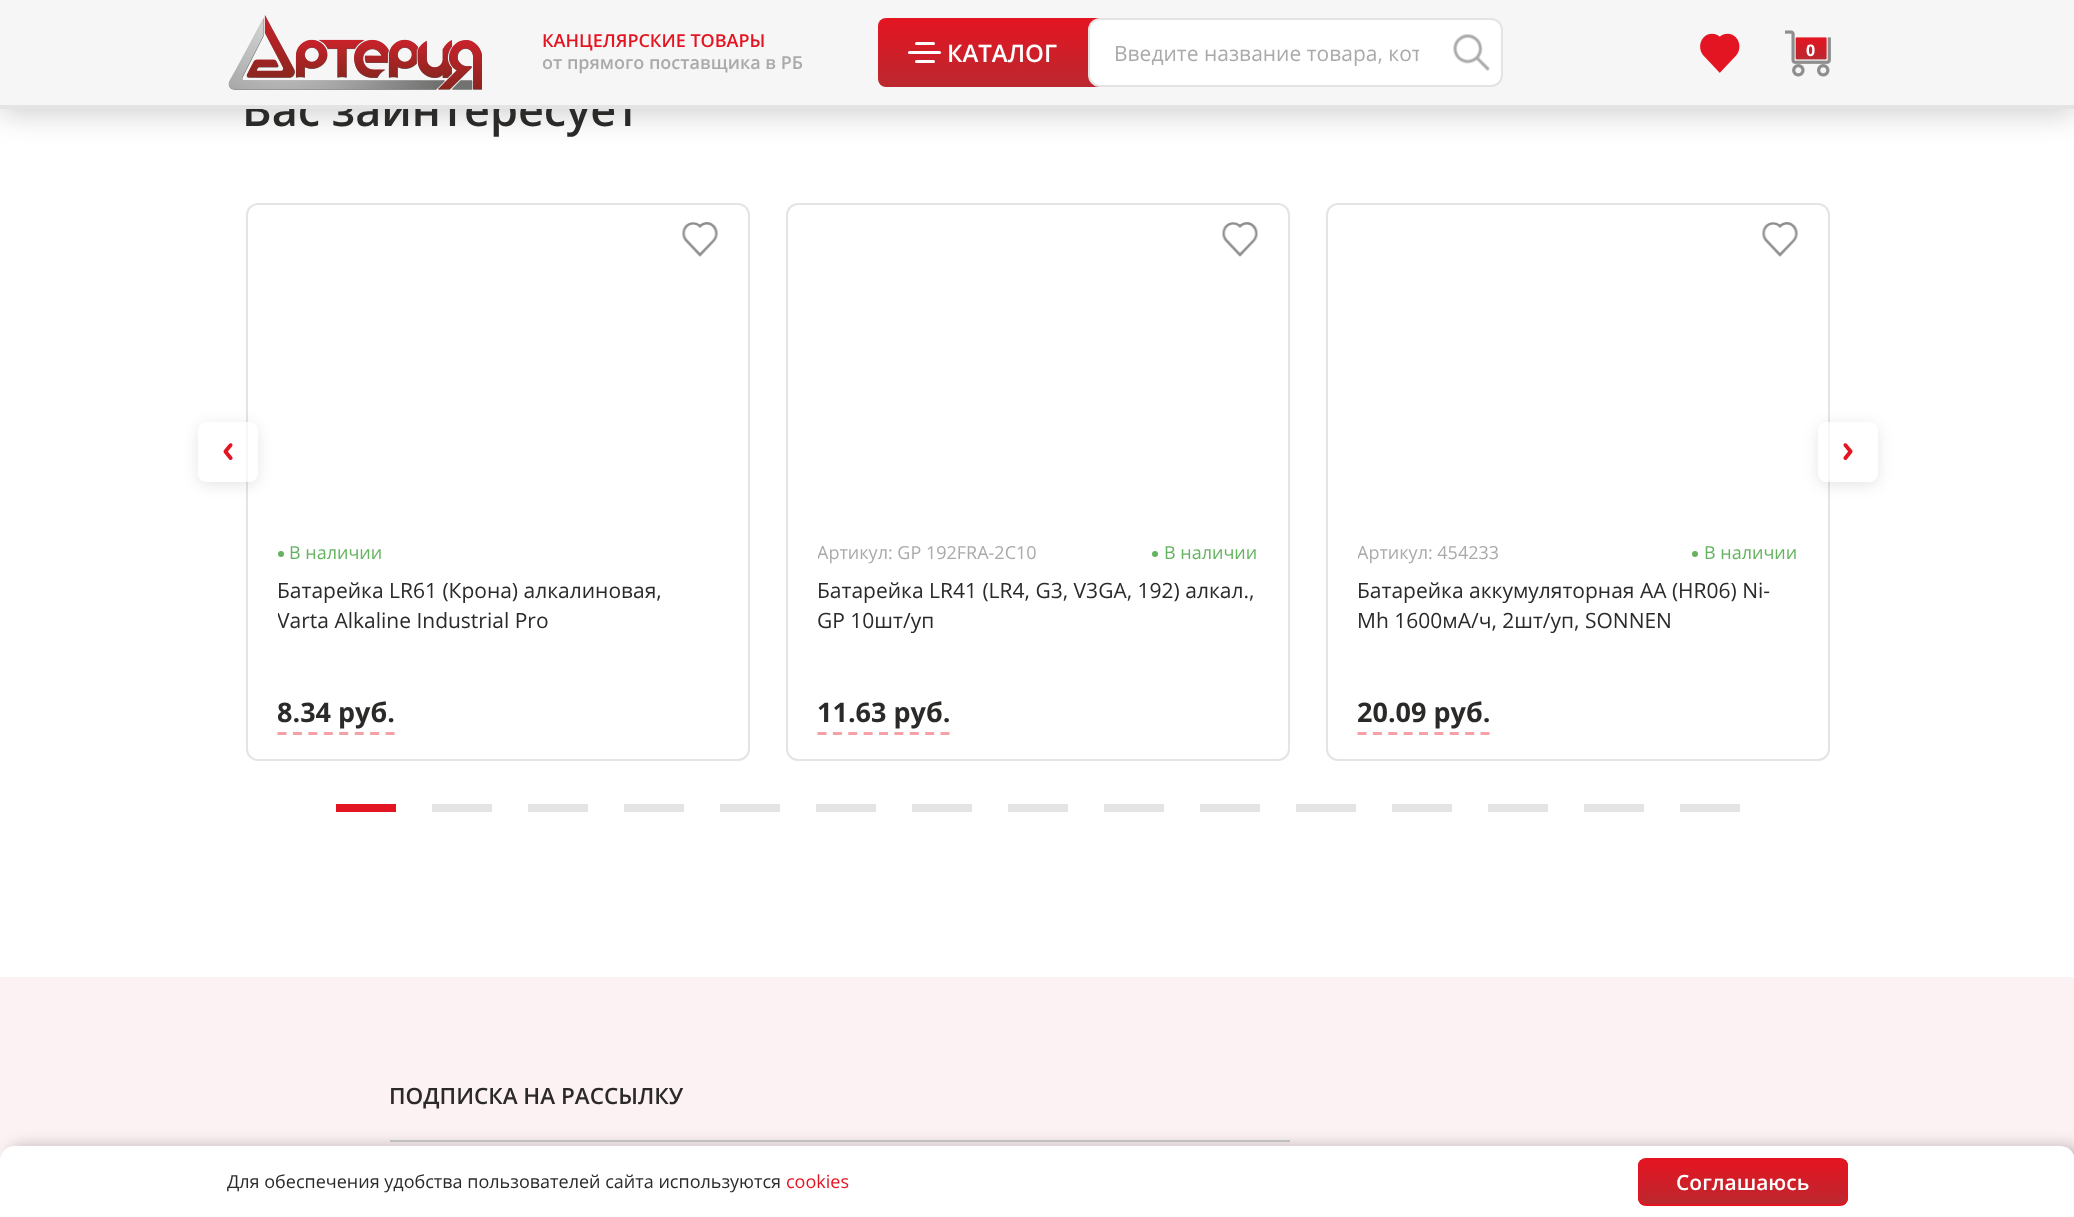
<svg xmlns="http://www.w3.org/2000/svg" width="2074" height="1217">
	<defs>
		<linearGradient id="g1" gradientUnits="userSpaceOnUse" x1="1020" y1="18" x2="1020" y2="87"><stop offset="0" stop-color="#E41522" /><stop offset="1" stop-color="#BB282F" /></linearGradient>
		<clipPath id="clip1"><rect x="1113" y="39" width="306" height="29" /></clipPath>
		<clipPath id="clip2"><path d="M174 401H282V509H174ZM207 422H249C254 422 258 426 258 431V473C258 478 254 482 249 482H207C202 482 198 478 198 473V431C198 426 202 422 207 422Z" clip-rule="evenodd" /></clipPath>
		<clipPath id="clip3"><path d="M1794 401H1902V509H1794ZM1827 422H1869C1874 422 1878 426 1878 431V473C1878 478 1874 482 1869 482H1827C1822 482 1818 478 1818 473V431C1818 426 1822 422 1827 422Z" clip-rule="evenodd" /></clipPath>
		<clipPath id="clip4"><rect x="278" y="576" width="441" height="90" /></clipPath>
		<clipPath id="clip5"><rect x="818" y="540" width="219" height="27" /></clipPath>
		<clipPath id="clip6"><rect x="1358" y="540" width="141" height="27" /></clipPath>
		<clipPath id="clip7"><rect x="1638" y="1158" width="210" height="48" rx="8" /></clipPath>
		<linearGradient id="g2" gradientUnits="userSpaceOnUse" x1="1743" y1="1160" x2="1743" y2="1205"><stop offset="0" stop-color="#E41522" /><stop offset="1" stop-color="#BB282F" /></linearGradient>
	</defs>
	<rect width="100%" height="100%" fill="#FFFFFF" />
	<rect x="0" y="5" width="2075" height="108" fill="#000000" fill-opacity="0.2" filter="blur(15px)" />
	<text x="242" y="126" font-family="Open Sans" font-size="45" font-weight="600" fill="#2B2A29">Вас заинтересует</text>
	<rect x="0" y="0" width="2074" height="105" fill="#F6F6F6" />
	<image x="228" y="15" width="254" height="75" href="assets/img1.png" />
	<text x="542" y="47" font-family="Open Sans" font-size="18" font-weight="600" fill="#E41522">КАНЦЕЛЯРСКИЕ ТОВАРЫ</text>
	<text x="542" y="69" font-family="Open Sans" font-size="18" font-weight="600" fill="#AAAAAA">от прямого поставщика в РБ</text>
	<rect x="878" y="18" width="285" height="69" rx="8" fill="url(#g1)" />
	<rect x="915" y="42" width="20" height="3" rx="1.5" fill="#FFFFFF" />
	<rect x="908" y="51" width="33" height="3" rx="1.5" fill="#FFFFFF" />
	<rect x="915" y="60" width="20" height="3" rx="1.5" fill="#FFFFFF" />
	<text x="947" y="62" font-family="Open Sans" font-size="24" font-weight="600" fill="#FFFFFF">КАТАЛОГ</text>
	<rect x="1089" y="19" width="413" height="67" rx="11" fill="#FFFFFF" stroke="#E4E4E4" stroke-width="2" />
	<g clip-path="url(#clip1)">
		<text x="1114" y="61" font-family="Open Sans" font-size="21" fill="#AAAAAA">Введите название товара, кот</text>
	</g>
	<image x="1453" y="34" width="37" height="37" href="assets/img2.png" />
	<image x="1700" y="33" width="40" height="40" href="assets/img3.png" />
	<image x="1785" y="30" width="46" height="47" href="assets/img4.png" />
	<text x="1806" y="56" font-family="Open Sans" font-size="16" font-weight="700" fill="#FFFFFF">0</text>
	<rect x="0" y="105" width="2074" height="4" fill="#E4E4E4" />
	<rect x="247" y="204" width="502" height="556" rx="11" fill="none" stroke="#E4E4E4" stroke-width="2" />
	<g clip-path="url(#clip2)">
		<rect x="198" y="425" width="60" height="60" rx="9" fill="#000000" fill-opacity="0.1" filter="blur(7.5px)" />
	</g>
	<rect x="198" y="422" width="60" height="60" rx="9" fill="#FFFFFF" fill-opacity="0.7" />
	<image x="223" y="443" width="10" height="17" href="assets/img5.png" />
	<rect x="1327" y="204" width="502" height="556" rx="11" fill="none" stroke="#E4E4E4" stroke-width="2" />
	<g clip-path="url(#clip3)">
		<rect x="1818" y="425" width="60" height="60" rx="9" fill="#000000" fill-opacity="0.1" filter="blur(7.5px)" />
	</g>
	<rect x="1818" y="422" width="60" height="60" rx="9" fill="#FFFFFF" fill-opacity="0.7" />
	<image x="1843" y="443" width="10" height="17" href="assets/img6.png" />
	<image x="682" y="222" width="36" height="35" href="assets/img7.png" />
	<circle cx="281" cy="554" r="3" fill="#65B360" />
	<text x="289" y="559" font-family="Open Sans" font-size="18" fill="#65B360">В наличии</text>
	<text x="277" y="598" font-family="Open Sans" font-size="21" fill="#2B2A29">Батарейка LR61 (Крона) алкалиновая,</text>
	<g clip-path="url(#clip4)">
		<text x="277" y="628" font-family="Open Sans" font-size="21" fill="#2B2A29">Varta Alkaline Industrial Pro</text>
	</g>
	<path d="M277.5 733.5H394.5" fill="none" stroke="#F4A1A7" stroke-width="3" stroke-dasharray="9 6.44" />
	<text x="277" y="722" font-family="Open Sans" font-size="27" font-weight="700" fill="#2B2A29">8.34 руб.</text>
	<rect x="787" y="204" width="502" height="556" rx="11" fill="none" stroke="#E4E4E4" stroke-width="2" />
	<image x="1222" y="222" width="36" height="35" href="assets/img7.png" />
	<g clip-path="url(#clip5)">
		<text x="817" y="559" font-family="Open Sans" font-size="18" fill="#AAAAAA">Артикул: GP 192FRA-2C10</text>
	</g>
	<circle cx="1155" cy="554" r="3" fill="#65B360" />
	<text x="1164" y="559" font-family="Open Sans" font-size="18" fill="#65B360">В наличии</text>
	<g font-family="Open Sans" font-size="21" fill="#2B2A29">
		<text x="817" y="598">Батарейка LR41 (LR4, G3, V3GA, 192) алкал.,</text>
		<text x="817" y="628">GP 10шт/уп</text>
	</g>
	<path d="M817.5 733.5H949.5" fill="none" stroke="#F4A1A7" stroke-width="3" stroke-dasharray="9 6.38" />
	<text x="817" y="722" font-family="Open Sans" font-size="27" font-weight="700" fill="#2B2A29">11.63 руб.</text>
	<image x="1762" y="222" width="36" height="35" href="assets/img7.png" />
	<g clip-path="url(#clip6)">
		<text x="1357" y="559" font-family="Open Sans" font-size="18" fill="#AAAAAA">Артикул: 454233</text>
	</g>
	<circle cx="1695" cy="554" r="3" fill="#65B360" />
	<text x="1704" y="559" font-family="Open Sans" font-size="18" fill="#65B360">В наличии</text>
	<g font-family="Open Sans" font-size="21" fill="#2B2A29">
		<text x="1357" y="598">Батарейка аккумуляторная AA (HR06) Ni-</text>
		<text x="1357" y="628">Mh 1600мА/ч, 2шт/уп, SONNEN</text>
	</g>
	<path d="M1357.5 733.5H1489.5" fill="none" stroke="#F4A1A7" stroke-width="3" stroke-dasharray="9 6.38" />
	<text x="1357" y="722" font-family="Open Sans" font-size="27" font-weight="700" fill="#2B2A29">20.09 руб.</text>
	<rect x="336" y="804" width="60" height="8" fill="#E41522" />
	<rect x="432" y="804" width="60" height="8" fill="#E4E4E4" />
	<rect x="528" y="804" width="60" height="8" fill="#E4E4E4" />
	<rect x="624" y="804" width="60" height="8" fill="#E4E4E4" />
	<rect x="720" y="804" width="60" height="8" fill="#E4E4E4" />
	<rect x="816" y="804" width="60" height="8" fill="#E4E4E4" />
	<rect x="912" y="804" width="60" height="8" fill="#E4E4E4" />
	<rect x="1008" y="804" width="60" height="8" fill="#E4E4E4" />
	<rect x="1104" y="804" width="60" height="8" fill="#E4E4E4" />
	<rect x="1200" y="804" width="60" height="8" fill="#E4E4E4" />
	<rect x="1296" y="804" width="60" height="8" fill="#E4E4E4" />
	<rect x="1392" y="804" width="60" height="8" fill="#E4E4E4" />
	<rect x="1488" y="804" width="60" height="8" fill="#E4E4E4" />
	<rect x="1584" y="804" width="60" height="8" fill="#E4E4E4" />
	<rect x="1680" y="804" width="60" height="8" fill="#E4E4E4" />
	<rect x="0" y="977" width="2074" height="184" fill="#FDF2F3" />
	<text x="389" y="1104" font-family="Open Sans" font-size="22.5" font-weight="600" fill="#2B2A29">ПОДПИСКА НА РАССЫЛКУ</text>
	<rect x="390" y="1140" width="900" height="2" fill="#CCCCCC" />
	<rect x="8" y="1146" width="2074" height="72" rx="15" fill="#000000" fill-opacity="0.25" filter="blur(7.5px)" />
	<path d="M15 1146H2060C2068.5 1146 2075 1152.5 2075 1161V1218H0V1161C0 1152.5 6.5 1146 15 1146Z" fill="#FFFFFF" />
	<text x="227" y="1188" font-family="Open Sans" font-size="18" fill="#2B2A29">Для обеспечения удобства пользователей сайта используются</text>
	<text x="786" y="1188" font-family="Open Sans" font-size="18" fill="#E41522">cookies</text>
	<g clip-path="url(#clip7)">
		<rect x="1638" y="1160" width="210" height="45" fill="url(#g2)" />
	</g>
	<rect x="1639" y="1159" width="208" height="46" rx="7" fill="none" stroke="#E41522" stroke-width="2" />
	<text x="1676" y="1190" font-family="Open Sans" font-size="21" font-weight="600" fill="#FFFFFF">Соглашаюсь</text>
</svg>
